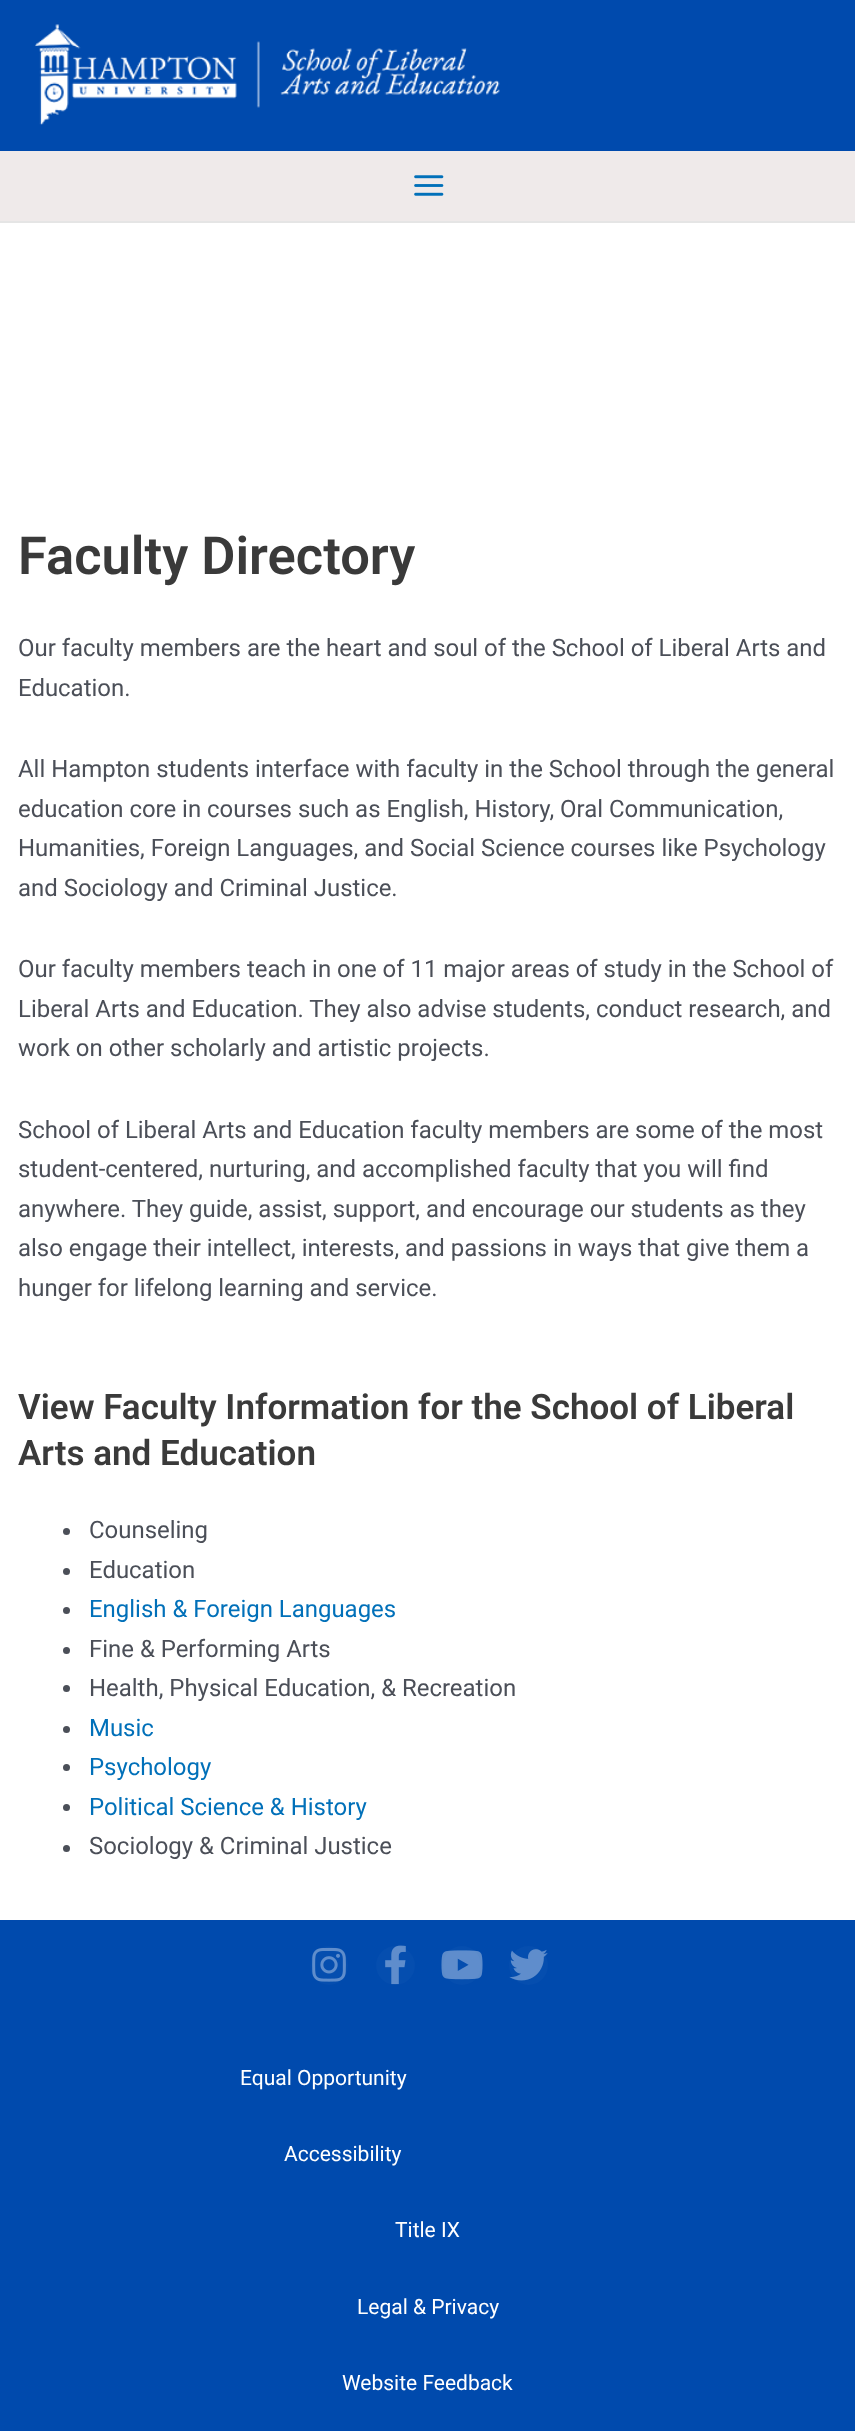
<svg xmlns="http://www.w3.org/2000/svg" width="855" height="2431">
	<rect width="100%" height="100%" fill="#FFFFFF" />
	<rect x="0" y="0" width="855" height="151" fill="#004AAD" />
	<image x="35" y="24" width="465" height="101" href="assets/img1.png" />
	<rect x="0" y="151" width="855" height="70" fill="#EFEAEA" />
	<rect x="0" y="221" width="855" height="2" fill="#E5E5E5" />
	<image x="414" y="175" width="30" height="21" href="assets/img2.png" />
	<text x="18" y="574" font-family="Roboto" font-size="52.5" font-weight="600" fill="#3A3A3A">Faculty Directory</text>
	<g font-family="Roboto" font-size="23.95" fill="#4B4F58">
		<text x="18" y="656">Our faculty members are the heart and soul of the School of Liberal Arts and</text>
		<text x="18" y="696">Education.</text>
		<text x="18" y="777">All Hampton students interface with faculty in the School through the general</text>
		<text x="18" y="817">education core in courses such as English, History, Oral Communication,</text>
		<text x="18" y="856">Humanities, Foreign Languages, and Social Science courses like Psychology</text>
		<text x="18" y="896">and Sociology and Criminal Justice.</text>
		<text x="18" y="977">Our faculty members teach in one of 11 major areas of study in the School of</text>
		<text x="18" y="1017">Liberal Arts and Education. They also advise students, conduct research, and</text>
		<text x="18" y="1056">work on other scholarly and artistic projects.</text>
		<text x="18" y="1138">School of Liberal Arts and Education faculty members are some of the most</text>
		<text x="18" y="1177">student-centered, nurturing, and accomplished faculty that you will find</text>
		<text x="18" y="1217">anywhere. They guide, assist, support, and encourage our students as they</text>
		<text x="18" y="1256">also engage their intellect, interests, and passions in ways that give them a</text>
		<text x="18" y="1296">hunger for lifelong learning and service.</text>
	</g>
	<g font-family="Roboto" font-size="35" font-weight="600" fill="#3A3A3A">
		<text x="18" y="1419">View Faculty Information for the School of Liberal</text>
		<text x="18" y="1465">Arts and Education</text>
	</g>
	<circle cx="66.5" cy="1531.5" r="3.5" fill="#4B4F58" />
	<text x="89" y="1538" font-family="Roboto" font-size="23.95" fill="#4B4F58">Counseling</text>
	<circle cx="66.5" cy="1571.5" r="3.5" fill="#4B4F58" />
	<text x="89" y="1578" font-family="Roboto" font-size="23.95" fill="#4B4F58">Education</text>
	<circle cx="66.5" cy="1610.5" r="3.5" fill="#4B4F58" />
	<text x="89" y="1617" font-family="Roboto" font-size="23.95" fill="#0170B9">English &amp; Foreign Languages</text>
	<circle cx="66.5" cy="1650.5" r="3.5" fill="#4B4F58" />
	<text x="89" y="1657" font-family="Roboto" font-size="23.95" fill="#4B4F58">Fine &amp; Performing Arts</text>
	<circle cx="66.5" cy="1688.5" r="3.5" fill="#4B4F58" />
	<text x="89" y="1696" font-family="Roboto" font-size="23.95" fill="#4B4F58">Health, Physical Education, &amp; Recreation</text>
	<circle cx="66.5" cy="1729.5" r="3.5" fill="#4B4F58" />
	<text x="89" y="1736" font-family="Roboto" font-size="23.95" fill="#0170B9">Music</text>
	<circle cx="66.5" cy="1767.5" r="3.5" fill="#4B4F58" />
	<text x="89" y="1775" font-family="Roboto" font-size="23.95" fill="#0170B9">Psychology</text>
	<circle cx="66.5" cy="1807.5" r="3.5" fill="#4B4F58" />
	<text x="89" y="1815" font-family="Roboto" font-size="23.95" fill="#0170B9">Political Science &amp; History</text>
	<circle cx="66.5" cy="1848.5" r="3.5" fill="#4B4F58" />
	<text x="89" y="1854" font-family="Roboto" font-size="23.95" fill="#4B4F58">Sociology &amp; Criminal Justice</text>
	<rect x="0" y="1920" width="855" height="511" fill="#004AAD" />
	<rect x="310" y="1946" width="38" height="39" rx="19" fill="#054EAF" />
	<image x="312" y="1947" width="34" height="35" href="assets/img3.png" />
	<circle cx="395.5" cy="1965.5" r="19.5" fill="#054EAF" />
	<image x="385" y="1945" width="21" height="40" href="assets/img4.png" />
	<rect x="443" y="1946" width="38" height="39" rx="19" fill="#054EAF" />
	<image x="441" y="1950" width="42" height="30" href="assets/img5.png" />
	<circle cx="528.5" cy="1965.5" r="19.5" fill="#054EAF" />
	<image x="509" y="1949" width="39" height="32" href="assets/img6.png" />
	<g font-family="Roboto" font-size="21" fill="#FFFFFF">
		<text x="240" y="2085">Equal Opportunity</text>
		<text x="284" y="2161">Accessibility</text>
		<text x="395" y="2237">Title IX</text>
		<text x="357" y="2314">Legal &amp; Privacy</text>
		<text x="342" y="2390">Website Feedback</text>
	</g>
</svg>
